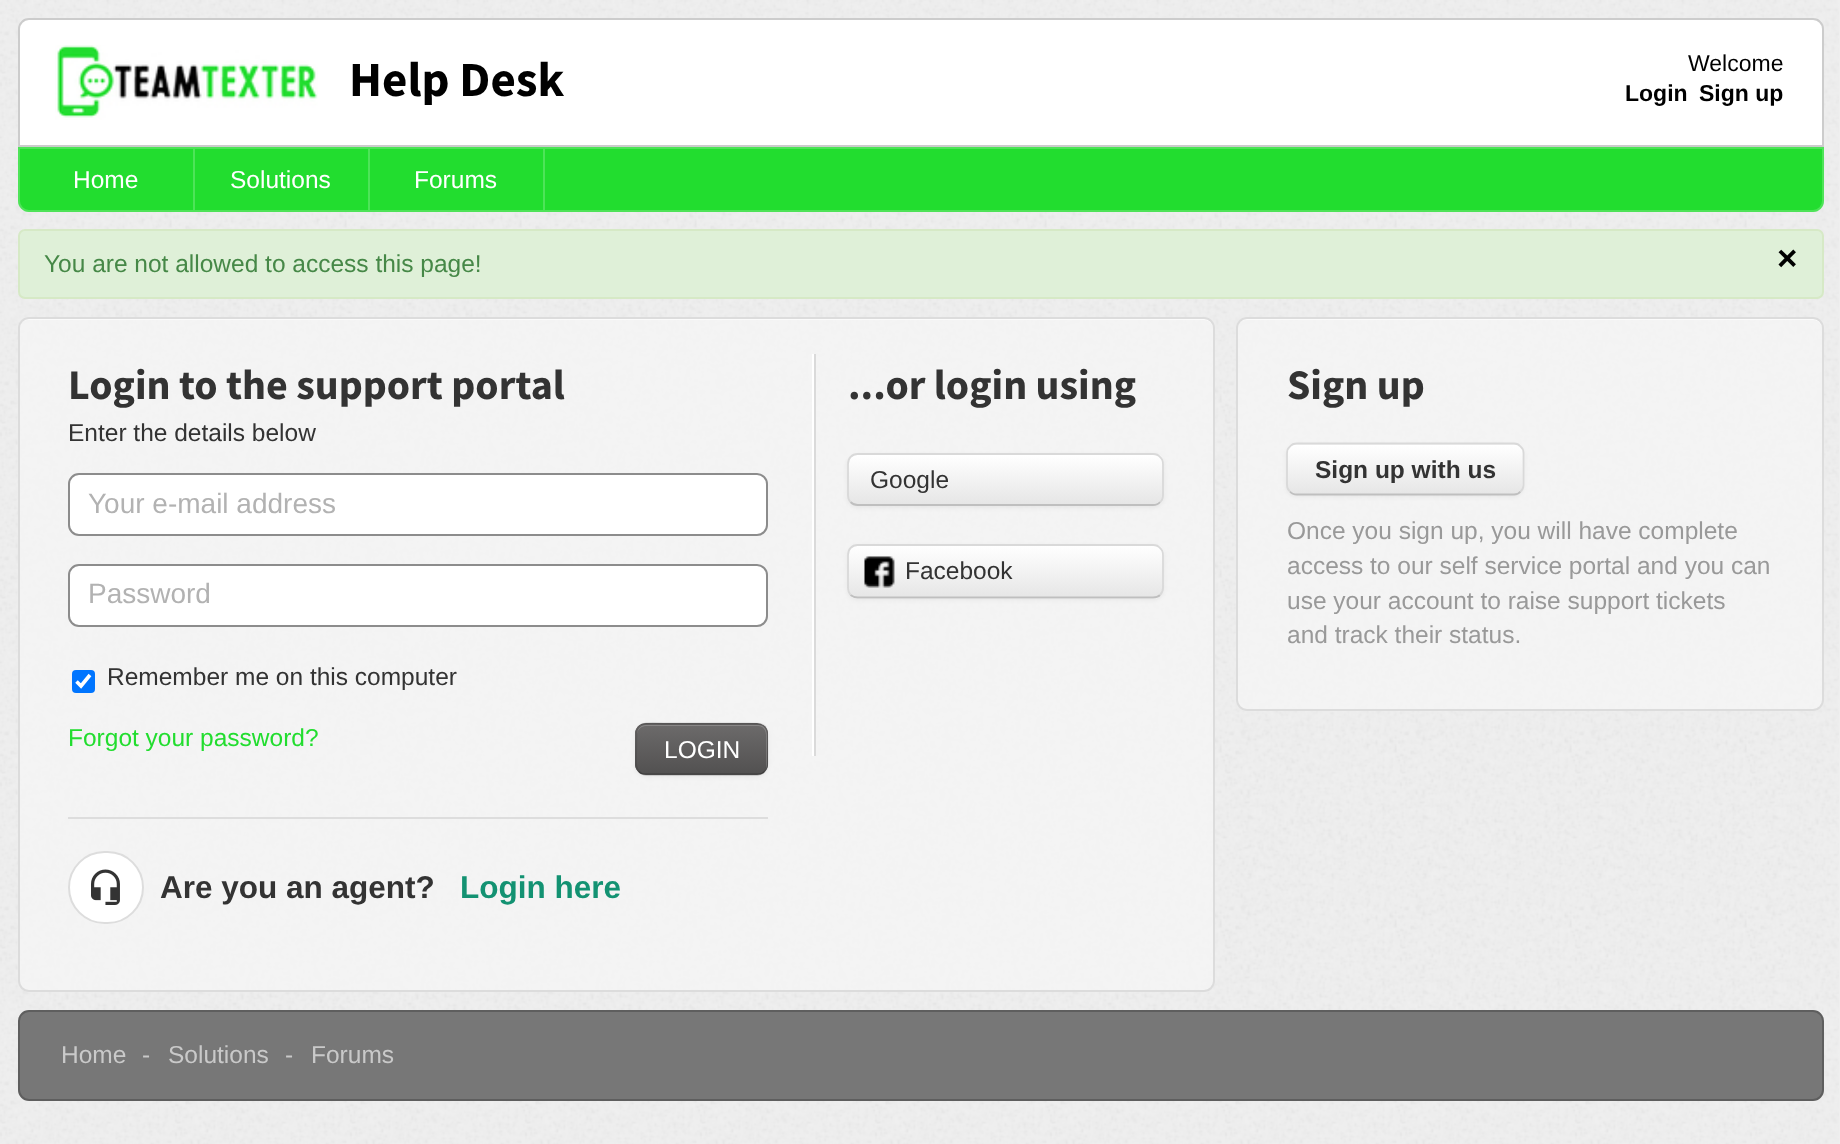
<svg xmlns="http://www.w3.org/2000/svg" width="1840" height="1144">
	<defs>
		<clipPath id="clip1"><rect x="635" y="723" width="133" height="52" rx="11" /></clipPath>
		<linearGradient id="g1" gradientUnits="userSpaceOnUse" x1="702" y1="725" x2="702" y2="774"><stop offset="0" stop-color="#6C6A6A" /><stop offset="1" stop-color="#525151" /></linearGradient>
		<clipPath id="clip2"><rect x="847" y="453" width="317" height="53" rx="11" /></clipPath>
		<linearGradient id="g2" gradientUnits="userSpaceOnUse" x1="1005" y1="455" x2="1005" y2="504"><stop offset="0" stop-color="#FFFFFF" /><stop offset="1" stop-color="#E6E6E6" /></linearGradient>
		<clipPath id="clip3"><rect x="847" y="544" width="317" height="55" rx="11" /></clipPath>
		<linearGradient id="g3" gradientUnits="userSpaceOnUse" x1="1005" y1="546" x2="1005" y2="597"><stop offset="0" stop-color="#FFFFFF" /><stop offset="1" stop-color="#E6E6E6" /></linearGradient>
		<clipPath id="clip4"><rect x="1286" y="443" width="238" height="52" rx="11" /></clipPath>
		<linearGradient id="g4" gradientUnits="userSpaceOnUse" x1="1405" y1="445" x2="1405" y2="494"><stop offset="0" stop-color="#FFFFFF" /><stop offset="1" stop-color="#E6E6E6" /></linearGradient>
	</defs>
	<rect width="100%" height="100%" fill="#EFEFEF" />
	<image x="0" y="0" width="1839" height="1144" href="assets/img1.png" />
	<path d="M29 18H1813C1819 18 1824 23 1824 29V147H18V29C18 23 23 18 29 18Z" fill="#FFFFFF" />
	<path d="M29 19H1813C1818.5 19 1823 23.5 1823 29V146H19V29C19 23.5 23.5 19 29 19Z" fill="none" stroke="#000000" stroke-opacity="0.2" stroke-width="2" />
	<image x="55" y="45" width="263" height="75" href="assets/img2.png" />
	<text x="349" y="96" font-family="Source Sans Pro" font-size="49" font-weight="700" fill="#000000">Help Desk</text>
	<text x="1688" y="71" font-family="Liberation Sans" font-size="23" fill="#000000">Welcome</text>
	<g font-family="Liberation Sans" font-size="23" font-weight="700" fill="#000000">
		<text x="1625" y="101">Login</text>
		<text x="1699" y="101">Sign up</text>
	</g>
	<path d="M18 147H1824V201C1824 207 1819 212 1813 212H29C23 212 18 207 18 201Z" fill="#22DD2F" />
	<path d="M19 148H1823V201C1823 206.5 1818.5 211 1813 211H29C23.5 211 19 206.5 19 201Z" fill="none" stroke="#FFFFFF" stroke-opacity="0.2" stroke-width="2" />
	<rect x="193" y="149" width="2" height="61" fill="#4EE459" />
	<text x="73" y="188" font-family="Liberation Sans" font-size="24.5" fill="#FFFFFF">Home</text>
	<rect x="368" y="149" width="2" height="61" fill="#4EE459" />
	<text x="230" y="188" font-family="Liberation Sans" font-size="24.5" fill="#FFFFFF">Solutions</text>
	<rect x="543" y="149" width="2" height="61" fill="#4EE459" />
	<text x="414" y="188" font-family="Liberation Sans" font-size="24.5" fill="#FFFFFF">Forums</text>
	<rect x="19" y="230" width="1804" height="68" rx="6" fill="#DFF0D8" stroke="#D6E9C6" stroke-width="2" />
	<text x="44" y="272" font-family="Liberation Sans" font-size="24.5" fill="#468847">You are not allowed to access this page!</text>
	<text x="1777" y="270" font-family="Liberation Sans" font-size="35" font-weight="700" fill="#000000">×</text>
	<rect x="18" y="317" width="1197" height="675" rx="11" fill="#F4F4F4" fill-opacity="0.9" />
	<path d="M28 320H1204C1209 320 1213 324 1213 329V328C1213 323 1209 319 1204 319H28C23 319 19 323 19 328V329C19 324 23 320 28 320Z" fill="#FBFBFB" />
	<rect x="19" y="318" width="1195" height="673" rx="10" fill="none" stroke="#DCDCDC" stroke-width="2" />
	<text x="68" y="399" font-family="Source Sans Pro" font-size="42" font-weight="700" fill="#333333">Login to the support portal</text>
	<text x="68" y="441" font-family="Liberation Sans" font-size="24.5" fill="#333333">Enter the details below</text>
	<rect x="69" y="474" width="698" height="61" rx="10" fill="#FFFFFF" stroke="#8C8C8C" stroke-width="2" />
	<text x="88" y="513" font-family="Liberation Sans" font-size="28" fill="#B2B2B2">Your e-mail address</text>
	<rect x="69" y="565" width="698" height="61" rx="10" fill="#FFFFFF" stroke="#8C8C8C" stroke-width="2" />
	<text x="88" y="603" font-family="Liberation Sans" font-size="28" fill="#B2B2B2">Password</text>
	<rect x="72" y="670" width="23" height="23" rx="4" fill="#0075FF" />
	<path d="M76.5 681.5L81 686L90 675" fill="none" stroke="#FFFFFF" stroke-width="3.6" />
	<text x="107" y="685" font-family="Liberation Sans" font-size="24.5" fill="#333333">Remember me on this computer</text>
	<text x="68" y="746" font-family="Liberation Sans" font-size="24.5" fill="#22DD2F">Forgot your password?</text>
	<rect x="635" y="725" width="133" height="52" rx="11" fill="#000000" fill-opacity="0.05" filter="blur(2px)" />
	<rect x="635" y="723" width="133" height="52" rx="11" fill="#626060" />
	<g clip-path="url(#clip1)">
		<rect x="635" y="725" width="133" height="49" fill="url(#g1)" />
	</g>
	<path d="M646 726H758C763 726 766 730 766 735V766C766 768 766 769 765 771C766 769 767 767 767 765V734C767 729 763 725 758 725H646C641 725 637 729 637 734V735C637 730 641 726 646 726Z" fill="#FFFFFF" fill-opacity="0.2" />
	<path d="M764.5 771.5C763 773.5 760.5 774.5 758 774.5H646C643 774.5 640.5 773.5 639 771.5" fill="none" stroke="#000000" stroke-opacity="0.25" stroke-width="1.8" />
	<path d="M639 771.5C635.5 768 636 764 636 759.5L636.5 731.5C638.5 719.5 657.5 723.5 664.5 723.5H739C768.5 723.5 767.5 721 767.5 749V759.5C767.5 764 768 768 764.5 771.5" fill="none" stroke="#000000" stroke-opacity="0.1" stroke-width="1.8" />
	<text x="664" y="758" font-family="Liberation Sans" font-size="24.5" fill="#FFFFFF">LOGIN</text>
	<rect x="68" y="817" width="700" height="2" fill="#DDDDDD" />
	<rect x="69" y="852" width="74" height="71" rx="35.5" fill="#FFFFFF" stroke="#DDDDDD" stroke-width="2" />
	<image x="91" y="869" width="29" height="36" href="assets/img3.png" />
	<text x="160" y="898" font-family="Liberation Sans" font-size="31.5" font-weight="700" fill="#333333">Are you an agent?</text>
	<text x="460" y="898" font-family="Liberation Sans" font-size="31.5" font-weight="700" fill="#139272">Login here</text>
	<rect x="812" y="354" width="2" height="402" fill="#FFFFFF" />
	<rect x="814" y="354" width="2" height="402" fill="#DADADA" />
	<text x="848" y="399" font-family="Source Sans Pro" font-size="42" font-weight="700" fill="#333333">...or login using</text>
	<rect x="847" y="455" width="317" height="53" rx="11" fill="#000000" fill-opacity="0.05" filter="blur(2px)" />
	<g clip-path="url(#clip2)">
		<rect x="847" y="455" width="317" height="49" fill="url(#g2)" />
	</g>
	<path d="M1160 502C1158.5 504 1156 505 1153 505H857.5C855 505 852.5 504 850.5 502" fill="none" stroke="#BFBFBF" stroke-width="1.8" />
	<path d="M850.5 502C849 500.5 848 498 848 495V464C848 461 849 458.5 850.5 457C852.5 455 855 454 857.5 454H1153C1156 454 1158.5 455 1160 457C1162 458.5 1163 461 1163 464V495C1163 498 1162 500.5 1160 502" fill="none" stroke="#D9D9D9" stroke-width="1.8" />
	<text x="870" y="488" font-family="Liberation Sans" font-size="24.5" fill="#333333">Google</text>
	<rect x="847" y="546" width="317" height="54" rx="11" fill="#000000" fill-opacity="0.05" filter="blur(2px)" />
	<rect x="847" y="544" width="317" height="55" rx="11" fill="#F5F5F5" />
	<g clip-path="url(#clip3)">
		<rect x="847" y="546" width="317" height="51" fill="url(#g3)" />
	</g>
	<path d="M1160 595C1158.5 596.5 1156 597.5 1153 597.5H857.5C855 597.5 852.5 596.5 850.5 595" fill="none" stroke="#BFBFBF" stroke-width="1.8" />
	<path d="M850.5 595C849 593 848 590.5 848 588V555C848 552 849 549.5 850.5 548C852.5 546 855 545 857.5 545H1153C1156 545 1158.5 546 1160 548C1162 549.5 1163 552 1163 555V588C1163 590.5 1162 593 1160 595" fill="none" stroke="#D9D9D9" stroke-width="1.8" />
	<image x="864" y="556" width="31" height="32" href="assets/img4.png" />
	<text x="905" y="579" font-family="Liberation Sans" font-size="24.5" fill="#333333">Facebook</text>
	<rect x="1236" y="317" width="588" height="394" rx="11" fill="#F4F4F4" fill-opacity="0.9" />
	<path d="M1246 320H1813C1818 320 1822 324 1822 329V328C1822 323 1818 319 1813 319H1246C1241 319 1237 323 1237 328V329C1237 324 1241 320 1246 320Z" fill="#FBFBFB" />
	<rect x="1237" y="318" width="586" height="392" rx="10" fill="none" stroke="#DCDCDC" stroke-width="2" />
	<text x="1287" y="399" font-family="Source Sans Pro" font-size="42" font-weight="700" fill="#333333">Sign up</text>
	<rect x="1286" y="445" width="238" height="52" rx="11" fill="#000000" fill-opacity="0.05" filter="blur(2px)" />
	<rect x="1286" y="443" width="238" height="52" rx="11" fill="#F5F5F5" />
	<g clip-path="url(#clip4)">
		<rect x="1286" y="445" width="238" height="49" fill="url(#g4)" />
	</g>
	<path d="M1297 446H1514C1519 446 1522 450 1522 455V486C1522 488 1522 489 1521 491C1522 489 1523 487 1523 485V454C1523 449 1519 445 1514 445H1297C1292 445 1288 449 1288 454V455C1288 450 1292 446 1297 446Z" fill="#FFFFFF" fill-opacity="0.2" />
	<path d="M1520.5 491.5C1519 493.5 1516.5 494.5 1514 494.5H1297C1294 494.5 1291.5 493.5 1290 491.5" fill="none" stroke="#BFBFBF" stroke-width="1.8" />
	<path d="M1290 491.5C1288 490 1287 487.5 1287 485V453C1287 450.5 1288 448 1290 446.5C1291.5 444.5 1294 443.5 1297 443.5H1514C1516.5 443.5 1519 444.5 1520.5 446.5C1522.5 448 1523.5 450.5 1523.5 453V485C1523.5 487.5 1522.5 490 1520.5 491.5" fill="none" stroke="#D9D9D9" stroke-width="1.8" />
	<text x="1315" y="478" font-family="Liberation Sans" font-size="24.5" font-weight="700" fill="#333333">Sign up with us</text>
	<g font-family="Liberation Sans" font-size="24.5" fill="#999999">
		<text x="1287" y="539">Once you sign up, you will have complete</text>
		<text x="1287" y="574">access to our self service portal and you can</text>
		<text x="1287" y="609">use your account to raise support tickets</text>
		<text x="1287" y="643">and track their status.</text>
	</g>
	<rect x="19" y="1011" width="1804" height="89" rx="10" fill="#777777" stroke="#5E5E5E" stroke-width="2" />
	<g font-family="Liberation Sans" font-size="24.5" fill="#C9C9C9">
		<text x="61" y="1063">Home</text>
		<text x="142" y="1063">-</text>
		<text x="168" y="1063">Solutions</text>
		<text x="285" y="1063">-</text>
		<text x="311" y="1063">Forums</text>
	</g>
</svg>
